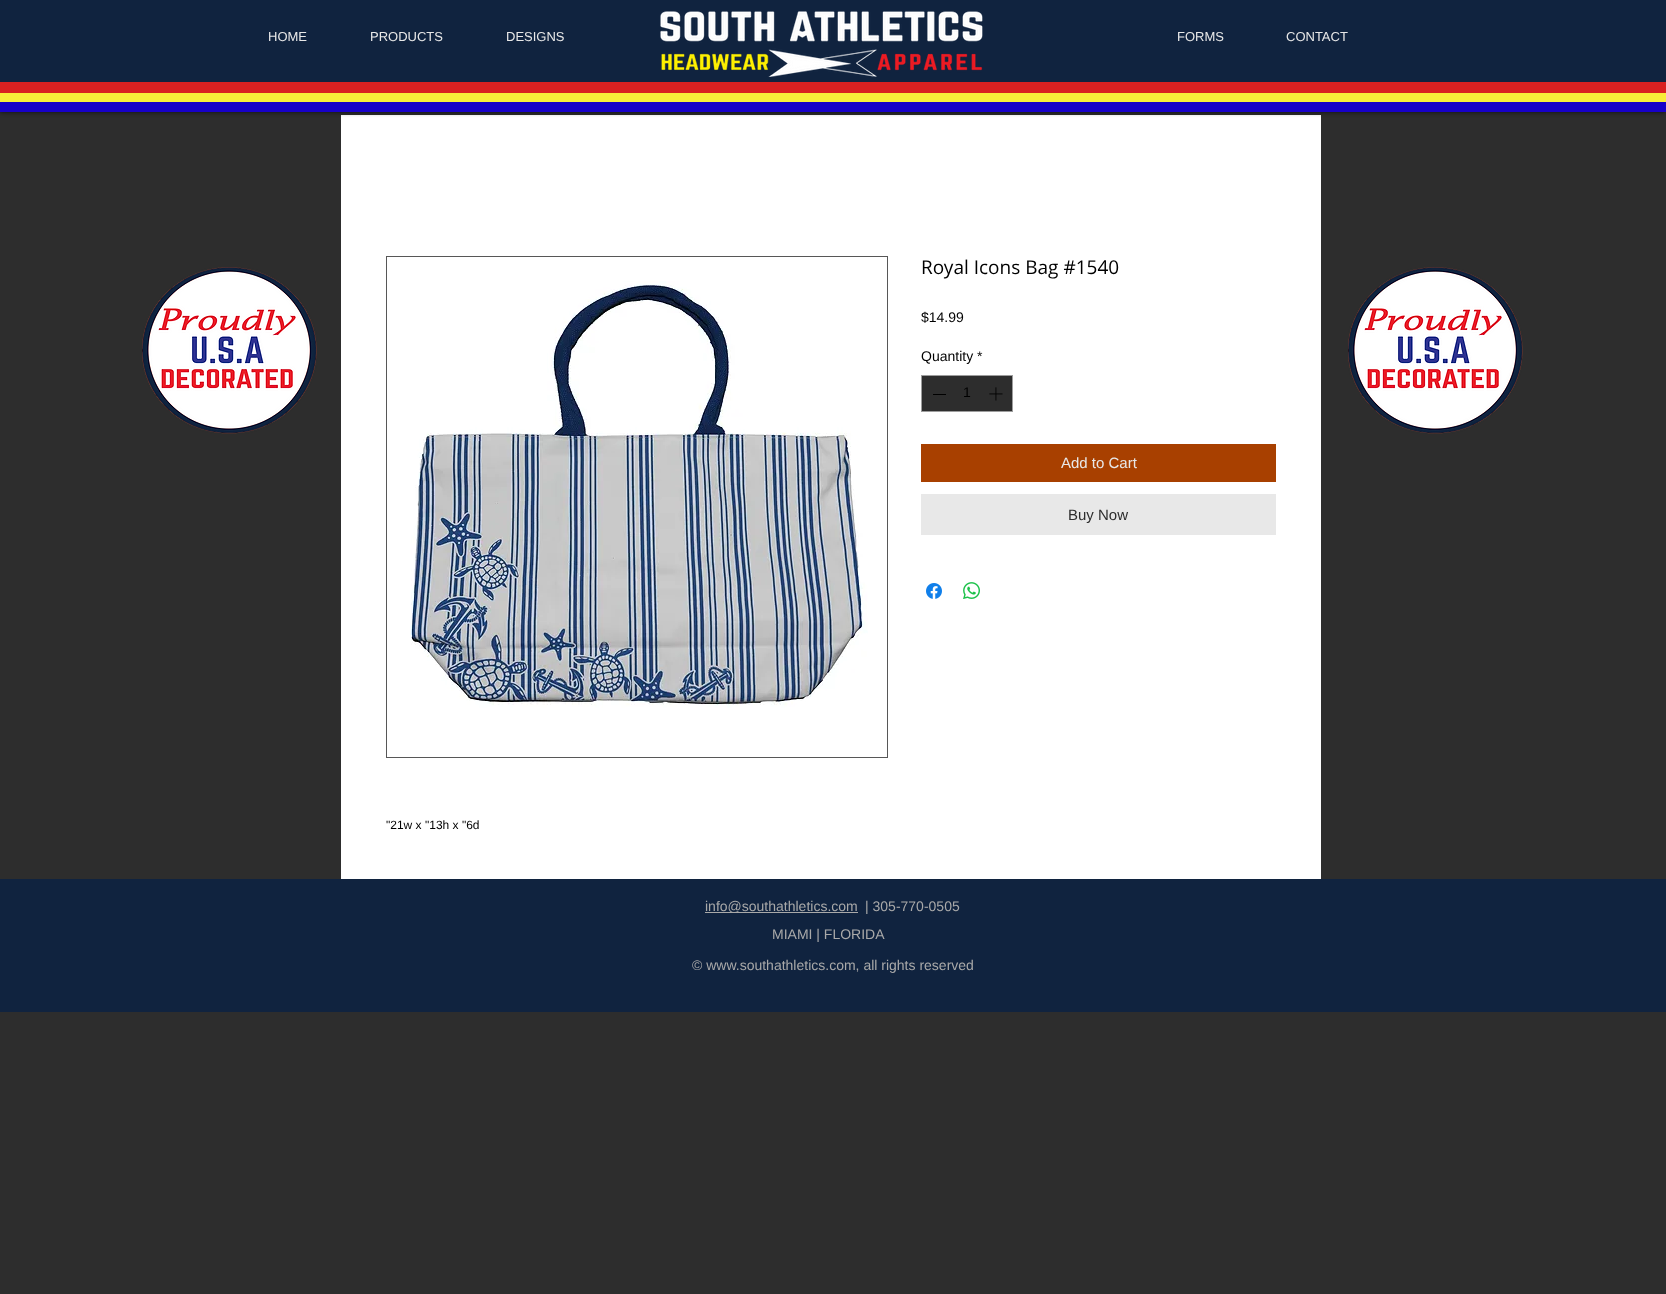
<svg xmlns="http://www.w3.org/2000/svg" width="1666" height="1294">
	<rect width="100%" height="100%" fill="#2D2D2D" />
	<rect x="341" y="115" width="980" height="764" fill="#FFFFFF" />
	<rect x="0" y="0" width="1666" height="112" fill="#000000" fill-opacity="0.7" filter="blur(2.5px)" />
	<rect x="0" y="102" width="1666" height="10" fill="#1700C9" />
	<rect x="0" y="0" width="1666" height="82" fill="#10233F" />
	<image x="660" y="11" width="323" height="66" href="assets/img1.png" />
	<g font-family="Liberation Sans" font-size="13" fill="#E8E8E8">
		<text x="268" y="41">HOME</text>
		<text x="370" y="41">PRODUCTS</text>
		<text x="506" y="41">DESIGNS</text>
		<text x="1177" y="41">FORMS</text>
		<text x="1286" y="41">CONTACT</text>
	</g>
	<rect x="0" y="82" width="1666" height="11" fill="#D92121" />
	<rect x="0" y="93" width="1666" height="9" fill="#F8ED39" />
	<text x="921" y="274" font-family="Open Sans" font-size="19" fill="#000000">Royal Icons Bag #1540</text>
	<g font-family="Liberation Sans" font-size="14" fill="#000000">
		<text x="921" y="322">$14.99</text>
		<text x="921" y="361">Quantity *</text>
	</g>
	<rect x="921.5" y="375.5" width="91" height="36" fill="#2D2D2D" stroke="#9D9D9D" />
	<rect x="933" y="394" width="13" height="1" fill="#000000" />
	<text x="963" y="397" font-family="Liberation Sans" font-size="14" fill="#000000">1</text>
	<image x="989" y="387" width="14" height="14" href="assets/img2.png" />
	<rect x="921" y="444" width="355" height="38" fill="#A84000" />
	<text x="1061" y="468" font-family="Liberation Sans" font-size="15" fill="#E8E8E8">Add to Cart</text>
	<rect x="921" y="494" width="355" height="41" fill="#E8E8E8" />
	<text x="1068" y="520" font-family="Liberation Sans" font-size="15" fill="#2D2D2D">Buy Now</text>
	<image x="926" y="583" width="16" height="16" href="assets/img3.png" />
	<image x="963" y="582" width="17" height="17" href="assets/img4.png" />
	<rect x="386.5" y="256.5" width="501" height="501" fill="none" stroke="#575757" />
	<image x="410" y="281" width="458" height="427" href="assets/img5.png" />
	<text x="386" y="829" font-family="Liberation Sans" font-size="12" fill="#000000">"21w x "13h x "6d</text>
	<image x="142" y="267" width="175" height="167" href="assets/img6.png" />
	<image x="1348" y="267" width="175" height="167" href="assets/img6.png" />
	<rect x="0" y="879" width="1666" height="133" fill="#10233F" />
	<rect x="705" y="912" width="153" height="1" fill="#A9A9A9" />
	<g font-family="Liberation Sans" font-size="14" fill="#A9A9A9">
		<text x="705" y="911">info@southathletics.com</text>
		<text x="865" y="911">| 305-770-0505</text>
		<text x="772" y="939">MIAMI | FLORIDA</text>
		<text x="692" y="970">© www.southathletics.com, all rights reserved</text>
	</g>
</svg>
